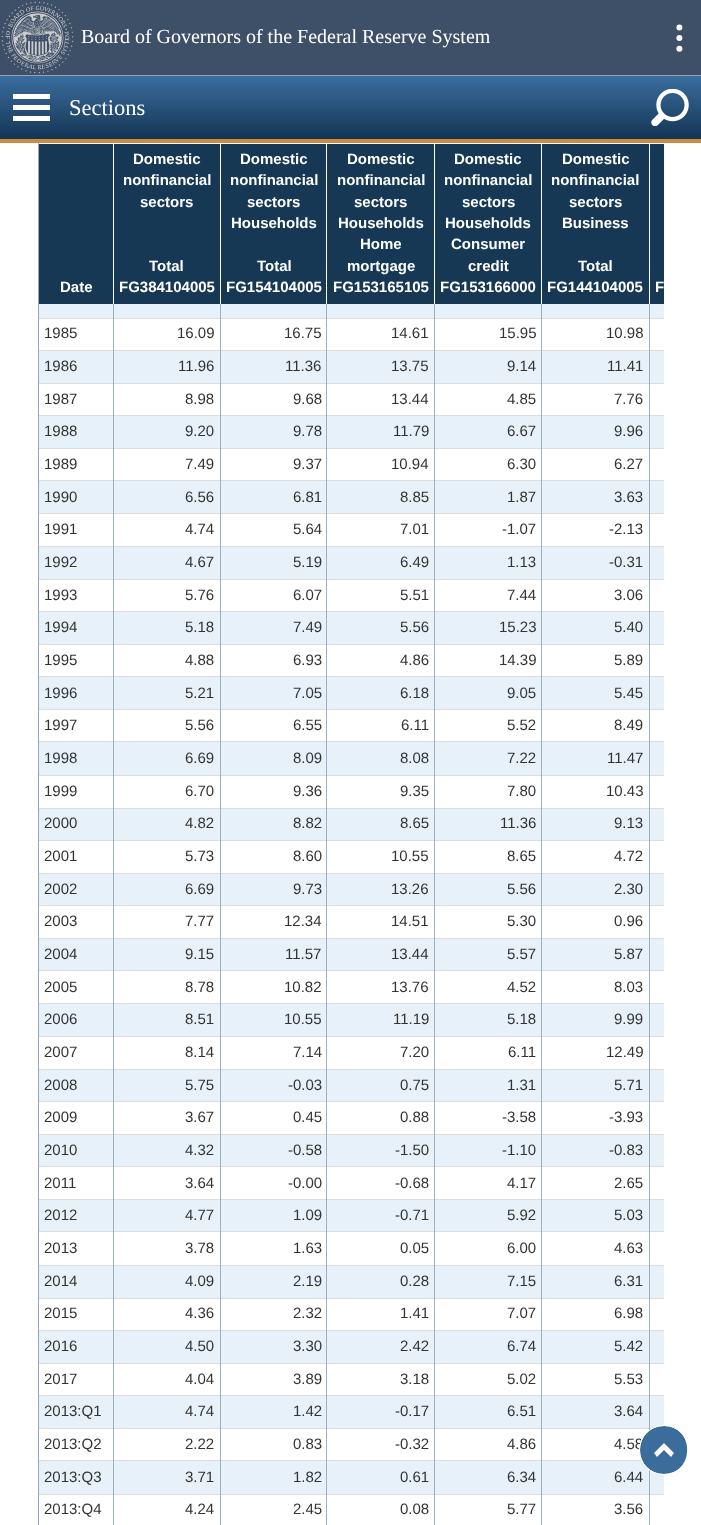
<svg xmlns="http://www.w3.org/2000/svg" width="701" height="1525">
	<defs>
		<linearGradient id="g1" gradientUnits="userSpaceOnUse" x1="351" y1="76" x2="351" y2="139"><stop offset="0" stop-color="#3B6D9E" /><stop offset="1" stop-color="#143554" /></linearGradient>
		<clipPath id="clip1"><rect x="13" y="89" width="37" height="37" /></clipPath>
	</defs>
	<rect width="100%" height="100%" fill="#FFFFFF" />
	<rect x="38.5" y="-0.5" width="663" height="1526" fill="none" stroke="#97A4B4" />
	<rect x="0" y="0" width="701" height="75" fill="#3E5068" />
	<image x="1" y="1" width="73" height="73" href="assets/img1.png" />
	<text x="81" y="43" font-family="Liberation Serif" font-size="20" fill="#FFFFFF">Board of Governors of the Federal Reserve System</text>
	<circle cx="679.4" cy="27.5" r="3" fill="#FFFFFF" />
	<circle cx="679.4" cy="38.1" r="3" fill="#FFFFFF" />
	<circle cx="679.4" cy="48.7" r="3" fill="#FFFFFF" />
	<rect x="0" y="76" width="701" height="63" fill="url(#g1)" />
	<rect x="0" y="75" width="701" height="1" fill="#97A4B4" />
	<rect x="0" y="139" width="701" height="4" fill="#CF8B40" />
	<g clip-path="url(#clip1)">
		<path d="M12.5 94H50V99H12.5ZM12.5 105H50V110H12.5ZM12.5 116H50V121H12.5Z" fill="#FFFFFF" />
	</g>
	<text x="69" y="115" font-family="Liberation Serif" font-size="22.5" fill="#FFFFFF">Sections</text>
	<image x="651" y="89" width="38" height="37" href="assets/img2.png" />
	<rect x="39" y="144" width="74" height="160" fill="#163855" />
	<text x="60" y="292" font-family="Liberation Sans" font-size="15" font-weight="700" fill="#FFFFFF">Date</text>
	<rect x="114" y="144" width="106" height="160" fill="#163855" />
	<g font-family="Liberation Sans" font-size="15" font-weight="700" fill="#FFFFFF">
		<text x="133" y="164">Domestic</text>
		<text x="123" y="185">nonfinancial</text>
		<text x="140" y="207">sectors</text>
		<text x="149" y="271">Total</text>
		<text x="119" y="292">FG384104005</text>
	</g>
	<rect x="221" y="144" width="213" height="160" fill="#163855" />
	<rect x="326" y="144" width="1" height="160" fill="#FFFFFF" />
	<g font-family="Liberation Sans" font-size="15" font-weight="700" fill="#FFFFFF">
		<text x="240" y="164">Domestic</text>
		<text x="230" y="185">nonfinancial</text>
		<text x="247" y="207">sectors</text>
		<text x="231" y="228">Households</text>
		<text x="257" y="271">Total</text>
		<text x="226" y="292">FG154104005</text>
		<text x="347" y="164">Domestic</text>
		<text x="337" y="185">nonfinancial</text>
		<text x="354" y="207">sectors</text>
		<text x="338" y="228">Households</text>
		<text x="360" y="249">Home</text>
		<text x="347" y="271">mortgage</text>
		<text x="333" y="292">FG153165105</text>
	</g>
	<rect x="435" y="144" width="214" height="160" fill="#163855" />
	<rect x="541" y="144" width="1" height="160" fill="#FFFFFF" />
	<g font-family="Liberation Sans" font-size="15" font-weight="700" fill="#FFFFFF">
		<text x="454" y="164">Domestic</text>
		<text x="444" y="185">nonfinancial</text>
		<text x="462" y="207">sectors</text>
		<text x="445" y="228">Households</text>
		<text x="451" y="249">Consumer</text>
		<text x="468" y="271">credit</text>
		<text x="440" y="292">FG153166000</text>
		<text x="562" y="164">Domestic</text>
		<text x="551" y="185">nonfinancial</text>
		<text x="569" y="207">sectors</text>
		<text x="562" y="228">Business</text>
		<text x="578" y="271">Total</text>
		<text x="547" y="292">FG144104005</text>
	</g>
	<rect x="650" y="144" width="14" height="160" fill="#163855" />
	<text x="655" y="292" font-family="Liberation Sans" font-size="15" font-weight="700" fill="#FFFFFF">F</text>
	<rect x="39" y="304" width="74" height="14" fill="#E7F1F9" />
	<rect x="113" y="304" width="1" height="14" fill="#9CB0C0" />
	<rect x="114" y="304" width="106" height="14" fill="#E7F1F9" />
	<rect x="220" y="304" width="1" height="14" fill="#9CB0C0" />
	<rect x="221" y="304" width="213" height="14" fill="#E7F1F9" />
	<rect x="326" y="304" width="1" height="14" fill="#9CB0C0" />
	<rect x="434" y="304" width="1" height="14" fill="#9CB0C0" />
	<rect x="435" y="304" width="214" height="14" fill="#E7F1F9" />
	<rect x="541" y="304" width="1" height="14" fill="#9CB0C0" />
	<rect x="649" y="304" width="1" height="14" fill="#9CB0C0" />
	<rect x="650" y="304" width="14" height="14" fill="#E7F1F9" />
	<rect x="39" y="318" width="75" height="1" fill="#DDDDDD" />
	<rect x="113" y="318" width="1" height="32" fill="#9CB0C0" />
	<text x="44" y="338" font-family="Liberation Sans" font-size="15" fill="#333333">1985</text>
	<rect x="114" y="318" width="550" height="1" fill="#DDDDDD" />
	<rect x="220" y="318" width="1" height="32" fill="#9CB0C0" />
	<text x="177" y="338" font-family="Liberation Sans" font-size="15" fill="#333333">16.09</text>
	<rect x="326" y="318" width="1" height="32" fill="#9CB0C0" />
	<text x="284" y="338" font-family="Liberation Sans" font-size="15" fill="#333333">16.75</text>
	<rect x="434" y="318" width="1" height="32" fill="#9CB0C0" />
	<text x="391" y="338" font-family="Liberation Sans" font-size="15" fill="#333333">14.61</text>
	<rect x="541" y="318" width="1" height="32" fill="#9CB0C0" />
	<text x="499" y="338" font-family="Liberation Sans" font-size="15" fill="#333333">15.95</text>
	<rect x="649" y="318" width="1" height="32" fill="#9CB0C0" />
	<text x="606" y="338" font-family="Liberation Sans" font-size="15" fill="#333333">10.98</text>
	<rect x="39" y="351" width="74" height="32" fill="#E7F1F9" />
	<rect x="39" y="350" width="75" height="1" fill="#DDDDDD" />
	<rect x="113" y="350" width="1" height="33" fill="#9CB0C0" />
	<text x="44" y="371" font-family="Liberation Sans" font-size="15" fill="#333333">1986</text>
	<rect x="114" y="351" width="106" height="32" fill="#E7F1F9" />
	<rect x="114" y="350" width="550" height="1" fill="#DDDDDD" />
	<rect x="220" y="350" width="1" height="33" fill="#9CB0C0" />
	<text x="178" y="371" font-family="Liberation Sans" font-size="15" fill="#333333">11.96</text>
	<rect x="221" y="351" width="213" height="32" fill="#E7F1F9" />
	<rect x="326" y="350" width="1" height="33" fill="#9CB0C0" />
	<text x="285" y="371" font-family="Liberation Sans" font-size="15" fill="#333333">11.36</text>
	<rect x="434" y="350" width="1" height="33" fill="#9CB0C0" />
	<text x="391" y="371" font-family="Liberation Sans" font-size="15" fill="#333333">13.75</text>
	<rect x="435" y="351" width="214" height="32" fill="#E7F1F9" />
	<rect x="541" y="350" width="1" height="33" fill="#9CB0C0" />
	<text x="507" y="371" font-family="Liberation Sans" font-size="15" fill="#333333">9.14</text>
	<rect x="649" y="350" width="1" height="33" fill="#9CB0C0" />
	<text x="607" y="371" font-family="Liberation Sans" font-size="15" fill="#333333">11.41</text>
	<rect x="650" y="351" width="14" height="32" fill="#E7F1F9" />
	<rect x="39" y="383" width="75" height="1" fill="#DDDDDD" />
	<rect x="113" y="383" width="1" height="32" fill="#9CB0C0" />
	<text x="44" y="404" font-family="Liberation Sans" font-size="15" fill="#333333">1987</text>
	<rect x="114" y="383" width="550" height="1" fill="#DDDDDD" />
	<rect x="220" y="383" width="1" height="32" fill="#9CB0C0" />
	<text x="185" y="404" font-family="Liberation Sans" font-size="15" fill="#333333">8.98</text>
	<rect x="326" y="383" width="1" height="32" fill="#9CB0C0" />
	<text x="293" y="404" font-family="Liberation Sans" font-size="15" fill="#333333">9.68</text>
	<rect x="434" y="383" width="1" height="32" fill="#9CB0C0" />
	<text x="391" y="404" font-family="Liberation Sans" font-size="15" fill="#333333">13.44</text>
	<rect x="541" y="383" width="1" height="32" fill="#9CB0C0" />
	<text x="507" y="404" font-family="Liberation Sans" font-size="15" fill="#333333">4.85</text>
	<rect x="649" y="383" width="1" height="32" fill="#9CB0C0" />
	<text x="614" y="404" font-family="Liberation Sans" font-size="15" fill="#333333">7.76</text>
	<rect x="39" y="416" width="74" height="32" fill="#E7F1F9" />
	<rect x="39" y="415" width="75" height="1" fill="#DDDDDD" />
	<rect x="113" y="415" width="1" height="33" fill="#9CB0C0" />
	<text x="44" y="436" font-family="Liberation Sans" font-size="15" fill="#333333">1988</text>
	<rect x="114" y="416" width="106" height="32" fill="#E7F1F9" />
	<rect x="114" y="415" width="550" height="1" fill="#DDDDDD" />
	<rect x="220" y="415" width="1" height="33" fill="#9CB0C0" />
	<text x="185" y="436" font-family="Liberation Sans" font-size="15" fill="#333333">9.20</text>
	<rect x="221" y="416" width="213" height="32" fill="#E7F1F9" />
	<rect x="326" y="415" width="1" height="33" fill="#9CB0C0" />
	<text x="293" y="436" font-family="Liberation Sans" font-size="15" fill="#333333">9.78</text>
	<rect x="434" y="415" width="1" height="33" fill="#9CB0C0" />
	<text x="393" y="436" font-family="Liberation Sans" font-size="15" fill="#333333">11.79</text>
	<rect x="435" y="416" width="214" height="32" fill="#E7F1F9" />
	<rect x="541" y="415" width="1" height="33" fill="#9CB0C0" />
	<text x="507" y="436" font-family="Liberation Sans" font-size="15" fill="#333333">6.67</text>
	<rect x="649" y="415" width="1" height="33" fill="#9CB0C0" />
	<text x="614" y="436" font-family="Liberation Sans" font-size="15" fill="#333333">9.96</text>
	<rect x="650" y="416" width="14" height="32" fill="#E7F1F9" />
	<rect x="39" y="448" width="75" height="1" fill="#DDDDDD" />
	<rect x="113" y="448" width="1" height="32" fill="#9CB0C0" />
	<text x="44" y="469" font-family="Liberation Sans" font-size="15" fill="#333333">1989</text>
	<rect x="114" y="448" width="550" height="1" fill="#DDDDDD" />
	<rect x="220" y="448" width="1" height="32" fill="#9CB0C0" />
	<text x="185" y="469" font-family="Liberation Sans" font-size="15" fill="#333333">7.49</text>
	<rect x="326" y="448" width="1" height="32" fill="#9CB0C0" />
	<text x="293" y="469" font-family="Liberation Sans" font-size="15" fill="#333333">9.37</text>
	<rect x="434" y="448" width="1" height="32" fill="#9CB0C0" />
	<text x="391" y="469" font-family="Liberation Sans" font-size="15" fill="#333333">10.94</text>
	<rect x="541" y="448" width="1" height="32" fill="#9CB0C0" />
	<text x="507" y="469" font-family="Liberation Sans" font-size="15" fill="#333333">6.30</text>
	<rect x="649" y="448" width="1" height="32" fill="#9CB0C0" />
	<text x="614" y="469" font-family="Liberation Sans" font-size="15" fill="#333333">6.27</text>
	<rect x="39" y="481" width="74" height="32" fill="#E7F1F9" />
	<rect x="39" y="480" width="75" height="1" fill="#DDDDDD" />
	<rect x="113" y="480" width="1" height="33" fill="#9CB0C0" />
	<text x="44" y="502" font-family="Liberation Sans" font-size="15" fill="#333333">1990</text>
	<rect x="114" y="481" width="106" height="32" fill="#E7F1F9" />
	<rect x="114" y="480" width="550" height="1" fill="#DDDDDD" />
	<rect x="220" y="480" width="1" height="33" fill="#9CB0C0" />
	<text x="185" y="502" font-family="Liberation Sans" font-size="15" fill="#333333">6.56</text>
	<rect x="221" y="481" width="213" height="32" fill="#E7F1F9" />
	<rect x="326" y="480" width="1" height="33" fill="#9CB0C0" />
	<text x="293" y="502" font-family="Liberation Sans" font-size="15" fill="#333333">6.81</text>
	<rect x="434" y="480" width="1" height="33" fill="#9CB0C0" />
	<text x="400" y="502" font-family="Liberation Sans" font-size="15" fill="#333333">8.85</text>
	<rect x="435" y="481" width="214" height="32" fill="#E7F1F9" />
	<rect x="541" y="480" width="1" height="33" fill="#9CB0C0" />
	<text x="507" y="502" font-family="Liberation Sans" font-size="15" fill="#333333">1.87</text>
	<rect x="649" y="480" width="1" height="33" fill="#9CB0C0" />
	<text x="614" y="502" font-family="Liberation Sans" font-size="15" fill="#333333">3.63</text>
	<rect x="650" y="481" width="14" height="32" fill="#E7F1F9" />
	<rect x="39" y="513" width="75" height="1" fill="#DDDDDD" />
	<rect x="113" y="513" width="1" height="33" fill="#9CB0C0" />
	<text x="44" y="534" font-family="Liberation Sans" font-size="15" fill="#333333">1991</text>
	<rect x="114" y="513" width="550" height="1" fill="#DDDDDD" />
	<rect x="220" y="513" width="1" height="33" fill="#9CB0C0" />
	<text x="185" y="534" font-family="Liberation Sans" font-size="15" fill="#333333">4.74</text>
	<rect x="326" y="513" width="1" height="33" fill="#9CB0C0" />
	<text x="293" y="534" font-family="Liberation Sans" font-size="15" fill="#333333">5.64</text>
	<rect x="434" y="513" width="1" height="33" fill="#9CB0C0" />
	<text x="400" y="534" font-family="Liberation Sans" font-size="15" fill="#333333">7.01</text>
	<rect x="541" y="513" width="1" height="33" fill="#9CB0C0" />
	<text x="502" y="534" font-family="Liberation Sans" font-size="15" fill="#333333">-1.07</text>
	<rect x="649" y="513" width="1" height="33" fill="#9CB0C0" />
	<text x="609" y="534" font-family="Liberation Sans" font-size="15" fill="#333333">-2.13</text>
	<rect x="39" y="547" width="74" height="32" fill="#E7F1F9" />
	<rect x="39" y="546" width="75" height="1" fill="#DDDDDD" />
	<rect x="113" y="546" width="1" height="33" fill="#9CB0C0" />
	<text x="44" y="567" font-family="Liberation Sans" font-size="15" fill="#333333">1992</text>
	<rect x="114" y="547" width="106" height="32" fill="#E7F1F9" />
	<rect x="114" y="546" width="550" height="1" fill="#DDDDDD" />
	<rect x="220" y="546" width="1" height="33" fill="#9CB0C0" />
	<text x="185" y="567" font-family="Liberation Sans" font-size="15" fill="#333333">4.67</text>
	<rect x="221" y="547" width="213" height="32" fill="#E7F1F9" />
	<rect x="326" y="546" width="1" height="33" fill="#9CB0C0" />
	<text x="293" y="567" font-family="Liberation Sans" font-size="15" fill="#333333">5.19</text>
	<rect x="434" y="546" width="1" height="33" fill="#9CB0C0" />
	<text x="400" y="567" font-family="Liberation Sans" font-size="15" fill="#333333">6.49</text>
	<rect x="435" y="547" width="214" height="32" fill="#E7F1F9" />
	<rect x="541" y="546" width="1" height="33" fill="#9CB0C0" />
	<text x="507" y="567" font-family="Liberation Sans" font-size="15" fill="#333333">1.13</text>
	<rect x="649" y="546" width="1" height="33" fill="#9CB0C0" />
	<text x="609" y="567" font-family="Liberation Sans" font-size="15" fill="#333333">-0.31</text>
	<rect x="650" y="547" width="14" height="32" fill="#E7F1F9" />
	<rect x="39" y="579" width="75" height="1" fill="#DDDDDD" />
	<rect x="113" y="579" width="1" height="32" fill="#9CB0C0" />
	<text x="44" y="600" font-family="Liberation Sans" font-size="15" fill="#333333">1993</text>
	<rect x="114" y="579" width="550" height="1" fill="#DDDDDD" />
	<rect x="220" y="579" width="1" height="32" fill="#9CB0C0" />
	<text x="185" y="600" font-family="Liberation Sans" font-size="15" fill="#333333">5.76</text>
	<rect x="326" y="579" width="1" height="32" fill="#9CB0C0" />
	<text x="293" y="600" font-family="Liberation Sans" font-size="15" fill="#333333">6.07</text>
	<rect x="434" y="579" width="1" height="32" fill="#9CB0C0" />
	<text x="400" y="600" font-family="Liberation Sans" font-size="15" fill="#333333">5.51</text>
	<rect x="541" y="579" width="1" height="32" fill="#9CB0C0" />
	<text x="507" y="600" font-family="Liberation Sans" font-size="15" fill="#333333">7.44</text>
	<rect x="649" y="579" width="1" height="32" fill="#9CB0C0" />
	<text x="614" y="600" font-family="Liberation Sans" font-size="15" fill="#333333">3.06</text>
	<rect x="39" y="612" width="74" height="32" fill="#E7F1F9" />
	<rect x="39" y="611" width="75" height="1" fill="#DDDDDD" />
	<rect x="113" y="611" width="1" height="33" fill="#9CB0C0" />
	<text x="44" y="632" font-family="Liberation Sans" font-size="15" fill="#333333">1994</text>
	<rect x="114" y="612" width="106" height="32" fill="#E7F1F9" />
	<rect x="114" y="611" width="550" height="1" fill="#DDDDDD" />
	<rect x="220" y="611" width="1" height="33" fill="#9CB0C0" />
	<text x="185" y="632" font-family="Liberation Sans" font-size="15" fill="#333333">5.18</text>
	<rect x="221" y="612" width="213" height="32" fill="#E7F1F9" />
	<rect x="326" y="611" width="1" height="33" fill="#9CB0C0" />
	<text x="293" y="632" font-family="Liberation Sans" font-size="15" fill="#333333">7.49</text>
	<rect x="434" y="611" width="1" height="33" fill="#9CB0C0" />
	<text x="400" y="632" font-family="Liberation Sans" font-size="15" fill="#333333">5.56</text>
	<rect x="435" y="612" width="214" height="32" fill="#E7F1F9" />
	<rect x="541" y="611" width="1" height="33" fill="#9CB0C0" />
	<text x="499" y="632" font-family="Liberation Sans" font-size="15" fill="#333333">15.23</text>
	<rect x="649" y="611" width="1" height="33" fill="#9CB0C0" />
	<text x="614" y="632" font-family="Liberation Sans" font-size="15" fill="#333333">5.40</text>
	<rect x="650" y="612" width="14" height="32" fill="#E7F1F9" />
	<rect x="39" y="644" width="75" height="1" fill="#DDDDDD" />
	<rect x="113" y="644" width="1" height="32" fill="#9CB0C0" />
	<text x="44" y="665" font-family="Liberation Sans" font-size="15" fill="#333333">1995</text>
	<rect x="114" y="644" width="550" height="1" fill="#DDDDDD" />
	<rect x="220" y="644" width="1" height="32" fill="#9CB0C0" />
	<text x="185" y="665" font-family="Liberation Sans" font-size="15" fill="#333333">4.88</text>
	<rect x="326" y="644" width="1" height="32" fill="#9CB0C0" />
	<text x="293" y="665" font-family="Liberation Sans" font-size="15" fill="#333333">6.93</text>
	<rect x="434" y="644" width="1" height="32" fill="#9CB0C0" />
	<text x="400" y="665" font-family="Liberation Sans" font-size="15" fill="#333333">4.86</text>
	<rect x="541" y="644" width="1" height="32" fill="#9CB0C0" />
	<text x="499" y="665" font-family="Liberation Sans" font-size="15" fill="#333333">14.39</text>
	<rect x="649" y="644" width="1" height="32" fill="#9CB0C0" />
	<text x="614" y="665" font-family="Liberation Sans" font-size="15" fill="#333333">5.89</text>
	<rect x="39" y="677" width="74" height="32" fill="#E7F1F9" />
	<rect x="39" y="676" width="75" height="1" fill="#DDDDDD" />
	<rect x="113" y="676" width="1" height="33" fill="#9CB0C0" />
	<text x="44" y="698" font-family="Liberation Sans" font-size="15" fill="#333333">1996</text>
	<rect x="114" y="677" width="106" height="32" fill="#E7F1F9" />
	<rect x="114" y="676" width="550" height="1" fill="#DDDDDD" />
	<rect x="220" y="676" width="1" height="33" fill="#9CB0C0" />
	<text x="185" y="698" font-family="Liberation Sans" font-size="15" fill="#333333">5.21</text>
	<rect x="221" y="677" width="213" height="32" fill="#E7F1F9" />
	<rect x="326" y="676" width="1" height="33" fill="#9CB0C0" />
	<text x="293" y="698" font-family="Liberation Sans" font-size="15" fill="#333333">7.05</text>
	<rect x="434" y="676" width="1" height="33" fill="#9CB0C0" />
	<text x="400" y="698" font-family="Liberation Sans" font-size="15" fill="#333333">6.18</text>
	<rect x="435" y="677" width="214" height="32" fill="#E7F1F9" />
	<rect x="541" y="676" width="1" height="33" fill="#9CB0C0" />
	<text x="507" y="698" font-family="Liberation Sans" font-size="15" fill="#333333">9.05</text>
	<rect x="649" y="676" width="1" height="33" fill="#9CB0C0" />
	<text x="614" y="698" font-family="Liberation Sans" font-size="15" fill="#333333">5.45</text>
	<rect x="650" y="677" width="14" height="32" fill="#E7F1F9" />
	<rect x="39" y="709" width="75" height="1" fill="#DDDDDD" />
	<rect x="113" y="709" width="1" height="32" fill="#9CB0C0" />
	<text x="44" y="730" font-family="Liberation Sans" font-size="15" fill="#333333">1997</text>
	<rect x="114" y="709" width="550" height="1" fill="#DDDDDD" />
	<rect x="220" y="709" width="1" height="32" fill="#9CB0C0" />
	<text x="185" y="730" font-family="Liberation Sans" font-size="15" fill="#333333">5.56</text>
	<rect x="326" y="709" width="1" height="32" fill="#9CB0C0" />
	<text x="293" y="730" font-family="Liberation Sans" font-size="15" fill="#333333">6.55</text>
	<rect x="434" y="709" width="1" height="32" fill="#9CB0C0" />
	<text x="401" y="730" font-family="Liberation Sans" font-size="15" fill="#333333">6.11</text>
	<rect x="541" y="709" width="1" height="32" fill="#9CB0C0" />
	<text x="507" y="730" font-family="Liberation Sans" font-size="15" fill="#333333">5.52</text>
	<rect x="649" y="709" width="1" height="32" fill="#9CB0C0" />
	<text x="614" y="730" font-family="Liberation Sans" font-size="15" fill="#333333">8.49</text>
	<rect x="39" y="742" width="74" height="33" fill="#E7F1F9" />
	<rect x="39" y="741" width="75" height="1" fill="#DDDDDD" />
	<rect x="113" y="741" width="1" height="34" fill="#9CB0C0" />
	<text x="44" y="763" font-family="Liberation Sans" font-size="15" fill="#333333">1998</text>
	<rect x="114" y="742" width="106" height="33" fill="#E7F1F9" />
	<rect x="114" y="741" width="550" height="1" fill="#DDDDDD" />
	<rect x="220" y="741" width="1" height="34" fill="#9CB0C0" />
	<text x="185" y="763" font-family="Liberation Sans" font-size="15" fill="#333333">6.69</text>
	<rect x="221" y="742" width="213" height="33" fill="#E7F1F9" />
	<rect x="326" y="741" width="1" height="34" fill="#9CB0C0" />
	<text x="293" y="763" font-family="Liberation Sans" font-size="15" fill="#333333">8.09</text>
	<rect x="434" y="741" width="1" height="34" fill="#9CB0C0" />
	<text x="400" y="763" font-family="Liberation Sans" font-size="15" fill="#333333">8.08</text>
	<rect x="435" y="742" width="214" height="33" fill="#E7F1F9" />
	<rect x="541" y="741" width="1" height="34" fill="#9CB0C0" />
	<text x="507" y="763" font-family="Liberation Sans" font-size="15" fill="#333333">7.22</text>
	<rect x="649" y="741" width="1" height="34" fill="#9CB0C0" />
	<text x="607" y="763" font-family="Liberation Sans" font-size="15" fill="#333333">11.47</text>
	<rect x="650" y="742" width="14" height="33" fill="#E7F1F9" />
	<rect x="39" y="775" width="75" height="1" fill="#DDDDDD" />
	<rect x="113" y="775" width="1" height="33" fill="#9CB0C0" />
	<text x="44" y="796" font-family="Liberation Sans" font-size="15" fill="#333333">1999</text>
	<rect x="114" y="775" width="550" height="1" fill="#DDDDDD" />
	<rect x="220" y="775" width="1" height="33" fill="#9CB0C0" />
	<text x="185" y="796" font-family="Liberation Sans" font-size="15" fill="#333333">6.70</text>
	<rect x="326" y="775" width="1" height="33" fill="#9CB0C0" />
	<text x="293" y="796" font-family="Liberation Sans" font-size="15" fill="#333333">9.36</text>
	<rect x="434" y="775" width="1" height="33" fill="#9CB0C0" />
	<text x="400" y="796" font-family="Liberation Sans" font-size="15" fill="#333333">9.35</text>
	<rect x="541" y="775" width="1" height="33" fill="#9CB0C0" />
	<text x="507" y="796" font-family="Liberation Sans" font-size="15" fill="#333333">7.80</text>
	<rect x="649" y="775" width="1" height="33" fill="#9CB0C0" />
	<text x="606" y="796" font-family="Liberation Sans" font-size="15" fill="#333333">10.43</text>
	<rect x="39" y="809" width="74" height="31" fill="#E7F1F9" />
	<rect x="39" y="808" width="75" height="1" fill="#DDDDDD" />
	<rect x="113" y="808" width="1" height="32" fill="#9CB0C0" />
	<text x="44" y="828" font-family="Liberation Sans" font-size="15" fill="#333333">2000</text>
	<rect x="114" y="809" width="106" height="31" fill="#E7F1F9" />
	<rect x="114" y="808" width="550" height="1" fill="#DDDDDD" />
	<rect x="220" y="808" width="1" height="32" fill="#9CB0C0" />
	<text x="185" y="828" font-family="Liberation Sans" font-size="15" fill="#333333">4.82</text>
	<rect x="221" y="809" width="213" height="31" fill="#E7F1F9" />
	<rect x="326" y="808" width="1" height="32" fill="#9CB0C0" />
	<text x="293" y="828" font-family="Liberation Sans" font-size="15" fill="#333333">8.82</text>
	<rect x="434" y="808" width="1" height="32" fill="#9CB0C0" />
	<text x="400" y="828" font-family="Liberation Sans" font-size="15" fill="#333333">8.65</text>
	<rect x="435" y="809" width="214" height="31" fill="#E7F1F9" />
	<rect x="541" y="808" width="1" height="32" fill="#9CB0C0" />
	<text x="500" y="828" font-family="Liberation Sans" font-size="15" fill="#333333">11.36</text>
	<rect x="649" y="808" width="1" height="32" fill="#9CB0C0" />
	<text x="614" y="828" font-family="Liberation Sans" font-size="15" fill="#333333">9.13</text>
	<rect x="650" y="809" width="14" height="31" fill="#E7F1F9" />
	<rect x="39" y="840" width="75" height="1" fill="#DDDDDD" />
	<rect x="113" y="840" width="1" height="33" fill="#9CB0C0" />
	<text x="44" y="861" font-family="Liberation Sans" font-size="15" fill="#333333">2001</text>
	<rect x="114" y="840" width="550" height="1" fill="#DDDDDD" />
	<rect x="220" y="840" width="1" height="33" fill="#9CB0C0" />
	<text x="185" y="861" font-family="Liberation Sans" font-size="15" fill="#333333">5.73</text>
	<rect x="326" y="840" width="1" height="33" fill="#9CB0C0" />
	<text x="293" y="861" font-family="Liberation Sans" font-size="15" fill="#333333">8.60</text>
	<rect x="434" y="840" width="1" height="33" fill="#9CB0C0" />
	<text x="391" y="861" font-family="Liberation Sans" font-size="15" fill="#333333">10.55</text>
	<rect x="541" y="840" width="1" height="33" fill="#9CB0C0" />
	<text x="507" y="861" font-family="Liberation Sans" font-size="15" fill="#333333">8.65</text>
	<rect x="649" y="840" width="1" height="33" fill="#9CB0C0" />
	<text x="614" y="861" font-family="Liberation Sans" font-size="15" fill="#333333">4.72</text>
	<rect x="39" y="874" width="74" height="31" fill="#E7F1F9" />
	<rect x="39" y="873" width="75" height="1" fill="#DDDDDD" />
	<rect x="113" y="873" width="1" height="32" fill="#9CB0C0" />
	<text x="44" y="894" font-family="Liberation Sans" font-size="15" fill="#333333">2002</text>
	<rect x="114" y="874" width="106" height="31" fill="#E7F1F9" />
	<rect x="114" y="873" width="550" height="1" fill="#DDDDDD" />
	<rect x="220" y="873" width="1" height="32" fill="#9CB0C0" />
	<text x="185" y="894" font-family="Liberation Sans" font-size="15" fill="#333333">6.69</text>
	<rect x="221" y="874" width="213" height="31" fill="#E7F1F9" />
	<rect x="326" y="873" width="1" height="32" fill="#9CB0C0" />
	<text x="293" y="894" font-family="Liberation Sans" font-size="15" fill="#333333">9.73</text>
	<rect x="434" y="873" width="1" height="32" fill="#9CB0C0" />
	<text x="391" y="894" font-family="Liberation Sans" font-size="15" fill="#333333">13.26</text>
	<rect x="435" y="874" width="214" height="31" fill="#E7F1F9" />
	<rect x="541" y="873" width="1" height="32" fill="#9CB0C0" />
	<text x="507" y="894" font-family="Liberation Sans" font-size="15" fill="#333333">5.56</text>
	<rect x="649" y="873" width="1" height="32" fill="#9CB0C0" />
	<text x="614" y="894" font-family="Liberation Sans" font-size="15" fill="#333333">2.30</text>
	<rect x="650" y="874" width="14" height="31" fill="#E7F1F9" />
	<rect x="39" y="905" width="75" height="1" fill="#DDDDDD" />
	<rect x="113" y="905" width="1" height="33" fill="#9CB0C0" />
	<text x="44" y="926" font-family="Liberation Sans" font-size="15" fill="#333333">2003</text>
	<rect x="114" y="905" width="550" height="1" fill="#DDDDDD" />
	<rect x="220" y="905" width="1" height="33" fill="#9CB0C0" />
	<text x="185" y="926" font-family="Liberation Sans" font-size="15" fill="#333333">7.77</text>
	<rect x="326" y="905" width="1" height="33" fill="#9CB0C0" />
	<text x="284" y="926" font-family="Liberation Sans" font-size="15" fill="#333333">12.34</text>
	<rect x="434" y="905" width="1" height="33" fill="#9CB0C0" />
	<text x="391" y="926" font-family="Liberation Sans" font-size="15" fill="#333333">14.51</text>
	<rect x="541" y="905" width="1" height="33" fill="#9CB0C0" />
	<text x="507" y="926" font-family="Liberation Sans" font-size="15" fill="#333333">5.30</text>
	<rect x="649" y="905" width="1" height="33" fill="#9CB0C0" />
	<text x="614" y="926" font-family="Liberation Sans" font-size="15" fill="#333333">0.96</text>
	<rect x="39" y="939" width="74" height="31" fill="#E7F1F9" />
	<rect x="39" y="938" width="75" height="1" fill="#DDDDDD" />
	<rect x="113" y="938" width="1" height="32" fill="#9CB0C0" />
	<text x="44" y="959" font-family="Liberation Sans" font-size="15" fill="#333333">2004</text>
	<rect x="114" y="939" width="106" height="31" fill="#E7F1F9" />
	<rect x="114" y="938" width="550" height="1" fill="#DDDDDD" />
	<rect x="220" y="938" width="1" height="32" fill="#9CB0C0" />
	<text x="185" y="959" font-family="Liberation Sans" font-size="15" fill="#333333">9.15</text>
	<rect x="221" y="939" width="213" height="31" fill="#E7F1F9" />
	<rect x="326" y="938" width="1" height="32" fill="#9CB0C0" />
	<text x="285" y="959" font-family="Liberation Sans" font-size="15" fill="#333333">11.57</text>
	<rect x="434" y="938" width="1" height="32" fill="#9CB0C0" />
	<text x="391" y="959" font-family="Liberation Sans" font-size="15" fill="#333333">13.44</text>
	<rect x="435" y="939" width="214" height="31" fill="#E7F1F9" />
	<rect x="541" y="938" width="1" height="32" fill="#9CB0C0" />
	<text x="507" y="959" font-family="Liberation Sans" font-size="15" fill="#333333">5.57</text>
	<rect x="649" y="938" width="1" height="32" fill="#9CB0C0" />
	<text x="614" y="959" font-family="Liberation Sans" font-size="15" fill="#333333">5.87</text>
	<rect x="650" y="939" width="14" height="31" fill="#E7F1F9" />
	<rect x="39" y="970" width="75" height="1" fill="#DDDDDD" />
	<rect x="113" y="970" width="1" height="33" fill="#9CB0C0" />
	<text x="44" y="992" font-family="Liberation Sans" font-size="15" fill="#333333">2005</text>
	<rect x="114" y="970" width="550" height="1" fill="#DDDDDD" />
	<rect x="220" y="970" width="1" height="33" fill="#9CB0C0" />
	<text x="185" y="992" font-family="Liberation Sans" font-size="15" fill="#333333">8.78</text>
	<rect x="326" y="970" width="1" height="33" fill="#9CB0C0" />
	<text x="284" y="992" font-family="Liberation Sans" font-size="15" fill="#333333">10.82</text>
	<rect x="434" y="970" width="1" height="33" fill="#9CB0C0" />
	<text x="391" y="992" font-family="Liberation Sans" font-size="15" fill="#333333">13.76</text>
	<rect x="541" y="970" width="1" height="33" fill="#9CB0C0" />
	<text x="507" y="992" font-family="Liberation Sans" font-size="15" fill="#333333">4.52</text>
	<rect x="649" y="970" width="1" height="33" fill="#9CB0C0" />
	<text x="614" y="992" font-family="Liberation Sans" font-size="15" fill="#333333">8.03</text>
	<rect x="39" y="1004" width="74" height="32" fill="#E7F1F9" />
	<rect x="39" y="1003" width="75" height="1" fill="#DDDDDD" />
	<rect x="113" y="1003" width="1" height="33" fill="#9CB0C0" />
	<text x="44" y="1024" font-family="Liberation Sans" font-size="15" fill="#333333">2006</text>
	<rect x="114" y="1004" width="106" height="32" fill="#E7F1F9" />
	<rect x="114" y="1003" width="550" height="1" fill="#DDDDDD" />
	<rect x="220" y="1003" width="1" height="33" fill="#9CB0C0" />
	<text x="185" y="1024" font-family="Liberation Sans" font-size="15" fill="#333333">8.51</text>
	<rect x="221" y="1004" width="213" height="32" fill="#E7F1F9" />
	<rect x="326" y="1003" width="1" height="33" fill="#9CB0C0" />
	<text x="284" y="1024" font-family="Liberation Sans" font-size="15" fill="#333333">10.55</text>
	<rect x="434" y="1003" width="1" height="33" fill="#9CB0C0" />
	<text x="393" y="1024" font-family="Liberation Sans" font-size="15" fill="#333333">11.19</text>
	<rect x="435" y="1004" width="214" height="32" fill="#E7F1F9" />
	<rect x="541" y="1003" width="1" height="33" fill="#9CB0C0" />
	<text x="507" y="1024" font-family="Liberation Sans" font-size="15" fill="#333333">5.18</text>
	<rect x="649" y="1003" width="1" height="33" fill="#9CB0C0" />
	<text x="614" y="1024" font-family="Liberation Sans" font-size="15" fill="#333333">9.99</text>
	<rect x="650" y="1004" width="14" height="32" fill="#E7F1F9" />
	<rect x="39" y="1036" width="75" height="1" fill="#DDDDDD" />
	<rect x="113" y="1036" width="1" height="33" fill="#9CB0C0" />
	<text x="44" y="1057" font-family="Liberation Sans" font-size="15" fill="#333333">2007</text>
	<rect x="114" y="1036" width="550" height="1" fill="#DDDDDD" />
	<rect x="220" y="1036" width="1" height="33" fill="#9CB0C0" />
	<text x="185" y="1057" font-family="Liberation Sans" font-size="15" fill="#333333">8.14</text>
	<rect x="326" y="1036" width="1" height="33" fill="#9CB0C0" />
	<text x="293" y="1057" font-family="Liberation Sans" font-size="15" fill="#333333">7.14</text>
	<rect x="434" y="1036" width="1" height="33" fill="#9CB0C0" />
	<text x="400" y="1057" font-family="Liberation Sans" font-size="15" fill="#333333">7.20</text>
	<rect x="541" y="1036" width="1" height="33" fill="#9CB0C0" />
	<text x="508" y="1057" font-family="Liberation Sans" font-size="15" fill="#333333">6.11</text>
	<rect x="649" y="1036" width="1" height="33" fill="#9CB0C0" />
	<text x="606" y="1057" font-family="Liberation Sans" font-size="15" fill="#333333">12.49</text>
	<rect x="39" y="1070" width="74" height="31" fill="#E7F1F9" />
	<rect x="39" y="1069" width="75" height="1" fill="#DDDDDD" />
	<rect x="113" y="1069" width="1" height="32" fill="#9CB0C0" />
	<text x="44" y="1090" font-family="Liberation Sans" font-size="15" fill="#333333">2008</text>
	<rect x="114" y="1070" width="106" height="31" fill="#E7F1F9" />
	<rect x="114" y="1069" width="550" height="1" fill="#DDDDDD" />
	<rect x="220" y="1069" width="1" height="32" fill="#9CB0C0" />
	<text x="185" y="1090" font-family="Liberation Sans" font-size="15" fill="#333333">5.75</text>
	<rect x="221" y="1070" width="213" height="31" fill="#E7F1F9" />
	<rect x="326" y="1069" width="1" height="32" fill="#9CB0C0" />
	<text x="288" y="1090" font-family="Liberation Sans" font-size="15" fill="#333333">-0.03</text>
	<rect x="434" y="1069" width="1" height="32" fill="#9CB0C0" />
	<text x="400" y="1090" font-family="Liberation Sans" font-size="15" fill="#333333">0.75</text>
	<rect x="435" y="1070" width="214" height="31" fill="#E7F1F9" />
	<rect x="541" y="1069" width="1" height="32" fill="#9CB0C0" />
	<text x="507" y="1090" font-family="Liberation Sans" font-size="15" fill="#333333">1.31</text>
	<rect x="649" y="1069" width="1" height="32" fill="#9CB0C0" />
	<text x="614" y="1090" font-family="Liberation Sans" font-size="15" fill="#333333">5.71</text>
	<rect x="650" y="1070" width="14" height="31" fill="#E7F1F9" />
	<rect x="39" y="1101" width="75" height="1" fill="#DDDDDD" />
	<rect x="113" y="1101" width="1" height="33" fill="#9CB0C0" />
	<text x="44" y="1122" font-family="Liberation Sans" font-size="15" fill="#333333">2009</text>
	<rect x="114" y="1101" width="550" height="1" fill="#DDDDDD" />
	<rect x="220" y="1101" width="1" height="33" fill="#9CB0C0" />
	<text x="185" y="1122" font-family="Liberation Sans" font-size="15" fill="#333333">3.67</text>
	<rect x="326" y="1101" width="1" height="33" fill="#9CB0C0" />
	<text x="293" y="1122" font-family="Liberation Sans" font-size="15" fill="#333333">0.45</text>
	<rect x="434" y="1101" width="1" height="33" fill="#9CB0C0" />
	<text x="400" y="1122" font-family="Liberation Sans" font-size="15" fill="#333333">0.88</text>
	<rect x="541" y="1101" width="1" height="33" fill="#9CB0C0" />
	<text x="502" y="1122" font-family="Liberation Sans" font-size="15" fill="#333333">-3.58</text>
	<rect x="649" y="1101" width="1" height="33" fill="#9CB0C0" />
	<text x="609" y="1122" font-family="Liberation Sans" font-size="15" fill="#333333">-3.93</text>
	<rect x="39" y="1135" width="74" height="31" fill="#E7F1F9" />
	<rect x="39" y="1134" width="75" height="1" fill="#DDDDDD" />
	<rect x="113" y="1134" width="1" height="32" fill="#9CB0C0" />
	<text x="44" y="1155" font-family="Liberation Sans" font-size="15" fill="#333333">2010</text>
	<rect x="114" y="1135" width="106" height="31" fill="#E7F1F9" />
	<rect x="114" y="1134" width="550" height="1" fill="#DDDDDD" />
	<rect x="220" y="1134" width="1" height="32" fill="#9CB0C0" />
	<text x="185" y="1155" font-family="Liberation Sans" font-size="15" fill="#333333">4.32</text>
	<rect x="221" y="1135" width="213" height="31" fill="#E7F1F9" />
	<rect x="326" y="1134" width="1" height="32" fill="#9CB0C0" />
	<text x="288" y="1155" font-family="Liberation Sans" font-size="15" fill="#333333">-0.58</text>
	<rect x="434" y="1134" width="1" height="32" fill="#9CB0C0" />
	<text x="395" y="1155" font-family="Liberation Sans" font-size="15" fill="#333333">-1.50</text>
	<rect x="435" y="1135" width="214" height="31" fill="#E7F1F9" />
	<rect x="541" y="1134" width="1" height="32" fill="#9CB0C0" />
	<text x="502" y="1155" font-family="Liberation Sans" font-size="15" fill="#333333">-1.10</text>
	<rect x="649" y="1134" width="1" height="32" fill="#9CB0C0" />
	<text x="609" y="1155" font-family="Liberation Sans" font-size="15" fill="#333333">-0.83</text>
	<rect x="650" y="1135" width="14" height="31" fill="#E7F1F9" />
	<rect x="39" y="1166" width="75" height="1" fill="#DDDDDD" />
	<rect x="113" y="1166" width="1" height="33" fill="#9CB0C0" />
	<text x="44" y="1188" font-family="Liberation Sans" font-size="15" fill="#333333">2011</text>
	<rect x="114" y="1166" width="550" height="1" fill="#DDDDDD" />
	<rect x="220" y="1166" width="1" height="33" fill="#9CB0C0" />
	<text x="185" y="1188" font-family="Liberation Sans" font-size="15" fill="#333333">3.64</text>
	<rect x="326" y="1166" width="1" height="33" fill="#9CB0C0" />
	<text x="288" y="1188" font-family="Liberation Sans" font-size="15" fill="#333333">-0.00</text>
	<rect x="434" y="1166" width="1" height="33" fill="#9CB0C0" />
	<text x="395" y="1188" font-family="Liberation Sans" font-size="15" fill="#333333">-0.68</text>
	<rect x="541" y="1166" width="1" height="33" fill="#9CB0C0" />
	<text x="507" y="1188" font-family="Liberation Sans" font-size="15" fill="#333333">4.17</text>
	<rect x="649" y="1166" width="1" height="33" fill="#9CB0C0" />
	<text x="614" y="1188" font-family="Liberation Sans" font-size="15" fill="#333333">2.65</text>
	<rect x="39" y="1200" width="74" height="31" fill="#E7F1F9" />
	<rect x="39" y="1199" width="75" height="1" fill="#DDDDDD" />
	<rect x="113" y="1199" width="1" height="32" fill="#9CB0C0" />
	<text x="44" y="1220" font-family="Liberation Sans" font-size="15" fill="#333333">2012</text>
	<rect x="114" y="1200" width="106" height="31" fill="#E7F1F9" />
	<rect x="114" y="1199" width="550" height="1" fill="#DDDDDD" />
	<rect x="220" y="1199" width="1" height="32" fill="#9CB0C0" />
	<text x="185" y="1220" font-family="Liberation Sans" font-size="15" fill="#333333">4.77</text>
	<rect x="221" y="1200" width="213" height="31" fill="#E7F1F9" />
	<rect x="326" y="1199" width="1" height="32" fill="#9CB0C0" />
	<text x="293" y="1220" font-family="Liberation Sans" font-size="15" fill="#333333">1.09</text>
	<rect x="434" y="1199" width="1" height="32" fill="#9CB0C0" />
	<text x="395" y="1220" font-family="Liberation Sans" font-size="15" fill="#333333">-0.71</text>
	<rect x="435" y="1200" width="214" height="31" fill="#E7F1F9" />
	<rect x="541" y="1199" width="1" height="32" fill="#9CB0C0" />
	<text x="507" y="1220" font-family="Liberation Sans" font-size="15" fill="#333333">5.92</text>
	<rect x="649" y="1199" width="1" height="32" fill="#9CB0C0" />
	<text x="614" y="1220" font-family="Liberation Sans" font-size="15" fill="#333333">5.03</text>
	<rect x="650" y="1200" width="14" height="31" fill="#E7F1F9" />
	<rect x="39" y="1231" width="75" height="1" fill="#DDDDDD" />
	<rect x="113" y="1231" width="1" height="34" fill="#9CB0C0" />
	<text x="44" y="1253" font-family="Liberation Sans" font-size="15" fill="#333333">2013</text>
	<rect x="114" y="1231" width="550" height="1" fill="#DDDDDD" />
	<rect x="220" y="1231" width="1" height="34" fill="#9CB0C0" />
	<text x="185" y="1253" font-family="Liberation Sans" font-size="15" fill="#333333">3.78</text>
	<rect x="326" y="1231" width="1" height="34" fill="#9CB0C0" />
	<text x="293" y="1253" font-family="Liberation Sans" font-size="15" fill="#333333">1.63</text>
	<rect x="434" y="1231" width="1" height="34" fill="#9CB0C0" />
	<text x="400" y="1253" font-family="Liberation Sans" font-size="15" fill="#333333">0.05</text>
	<rect x="541" y="1231" width="1" height="34" fill="#9CB0C0" />
	<text x="507" y="1253" font-family="Liberation Sans" font-size="15" fill="#333333">6.00</text>
	<rect x="649" y="1231" width="1" height="34" fill="#9CB0C0" />
	<text x="614" y="1253" font-family="Liberation Sans" font-size="15" fill="#333333">4.63</text>
	<rect x="39" y="1266" width="74" height="32" fill="#E7F1F9" />
	<rect x="39" y="1265" width="75" height="1" fill="#DDDDDD" />
	<rect x="39" y="1298" width="625" height="1" fill="#DDDDDD" />
	<rect x="39" y="1330" width="625" height="1" fill="#DDDDDD" />
	<rect x="39" y="1363" width="625" height="1" fill="#DDDDDD" />
	<rect x="39" y="1395" width="625" height="1" fill="#DDDDDD" />
	<rect x="39" y="1428" width="613" height="1" fill="#DDDDDD" />
	<rect x="39" y="1460" width="611" height="1" fill="#DDDDDD" />
	<rect x="39" y="1494" width="625" height="1" fill="#DDDDDD" />
	<rect x="113" y="1265" width="1" height="260" fill="#9CB0C0" />
	<text x="44" y="1286" font-family="Liberation Sans" font-size="15" fill="#333333">2014</text>
	<rect x="114" y="1266" width="106" height="32" fill="#E7F1F9" />
	<rect x="114" y="1265" width="550" height="1" fill="#DDDDDD" />
	<rect x="220" y="1265" width="1" height="33" fill="#9CB0C0" />
	<text x="185" y="1286" font-family="Liberation Sans" font-size="15" fill="#333333">4.09</text>
	<rect x="221" y="1266" width="213" height="32" fill="#E7F1F9" />
	<rect x="326" y="1265" width="1" height="33" fill="#9CB0C0" />
	<text x="293" y="1286" font-family="Liberation Sans" font-size="15" fill="#333333">2.19</text>
	<rect x="434" y="1265" width="1" height="33" fill="#9CB0C0" />
	<text x="400" y="1286" font-family="Liberation Sans" font-size="15" fill="#333333">0.28</text>
	<rect x="435" y="1266" width="214" height="32" fill="#E7F1F9" />
	<rect x="541" y="1265" width="1" height="33" fill="#9CB0C0" />
	<text x="507" y="1286" font-family="Liberation Sans" font-size="15" fill="#333333">7.15</text>
	<rect x="649" y="1265" width="1" height="33" fill="#9CB0C0" />
	<text x="614" y="1286" font-family="Liberation Sans" font-size="15" fill="#333333">6.31</text>
	<rect x="650" y="1266" width="14" height="32" fill="#E7F1F9" />
	<text x="44" y="1318" font-family="Liberation Sans" font-size="15" fill="#333333">2015</text>
	<rect x="220" y="1298" width="1" height="32" fill="#9CB0C0" />
	<text x="185" y="1318" font-family="Liberation Sans" font-size="15" fill="#333333">4.36</text>
	<rect x="326" y="1298" width="1" height="32" fill="#9CB0C0" />
	<text x="293" y="1318" font-family="Liberation Sans" font-size="15" fill="#333333">2.32</text>
	<rect x="434" y="1298" width="1" height="32" fill="#9CB0C0" />
	<text x="400" y="1318" font-family="Liberation Sans" font-size="15" fill="#333333">1.41</text>
	<rect x="541" y="1298" width="1" height="32" fill="#9CB0C0" />
	<text x="507" y="1318" font-family="Liberation Sans" font-size="15" fill="#333333">7.07</text>
	<rect x="649" y="1298" width="1" height="32" fill="#9CB0C0" />
	<text x="614" y="1318" font-family="Liberation Sans" font-size="15" fill="#333333">6.98</text>
	<rect x="39" y="1331" width="74" height="32" fill="#E7F1F9" />
	<text x="44" y="1351" font-family="Liberation Sans" font-size="15" fill="#333333">2016</text>
	<rect x="114" y="1331" width="106" height="32" fill="#E7F1F9" />
	<rect x="220" y="1330" width="1" height="33" fill="#9CB0C0" />
	<text x="185" y="1351" font-family="Liberation Sans" font-size="15" fill="#333333">4.50</text>
	<rect x="221" y="1331" width="213" height="32" fill="#E7F1F9" />
	<rect x="326" y="1330" width="1" height="33" fill="#9CB0C0" />
	<text x="293" y="1351" font-family="Liberation Sans" font-size="15" fill="#333333">3.30</text>
	<rect x="434" y="1330" width="1" height="33" fill="#9CB0C0" />
	<text x="400" y="1351" font-family="Liberation Sans" font-size="15" fill="#333333">2.42</text>
	<rect x="435" y="1331" width="214" height="32" fill="#E7F1F9" />
	<rect x="541" y="1330" width="1" height="33" fill="#9CB0C0" />
	<text x="507" y="1351" font-family="Liberation Sans" font-size="15" fill="#333333">6.74</text>
	<rect x="649" y="1330" width="1" height="33" fill="#9CB0C0" />
	<text x="614" y="1351" font-family="Liberation Sans" font-size="15" fill="#333333">5.42</text>
	<rect x="650" y="1331" width="14" height="32" fill="#E7F1F9" />
	<text x="44" y="1384" font-family="Liberation Sans" font-size="15" fill="#333333">2017</text>
	<rect x="220" y="1363" width="1" height="32" fill="#9CB0C0" />
	<text x="185" y="1384" font-family="Liberation Sans" font-size="15" fill="#333333">4.04</text>
	<rect x="326" y="1363" width="1" height="32" fill="#9CB0C0" />
	<text x="293" y="1384" font-family="Liberation Sans" font-size="15" fill="#333333">3.89</text>
	<rect x="434" y="1363" width="1" height="32" fill="#9CB0C0" />
	<text x="400" y="1384" font-family="Liberation Sans" font-size="15" fill="#333333">3.18</text>
	<rect x="541" y="1363" width="1" height="32" fill="#9CB0C0" />
	<text x="507" y="1384" font-family="Liberation Sans" font-size="15" fill="#333333">5.02</text>
	<rect x="649" y="1363" width="1" height="32" fill="#9CB0C0" />
	<text x="614" y="1384" font-family="Liberation Sans" font-size="15" fill="#333333">5.53</text>
	<rect x="39" y="1396" width="74" height="32" fill="#E7F1F9" />
	<text x="44" y="1416" font-family="Liberation Sans" font-size="15" fill="#333333">2013:Q1</text>
	<rect x="114" y="1396" width="106" height="32" fill="#E7F1F9" />
	<rect x="220" y="1395" width="1" height="33" fill="#9CB0C0" />
	<text x="185" y="1416" font-family="Liberation Sans" font-size="15" fill="#333333">4.74</text>
	<rect x="221" y="1396" width="213" height="32" fill="#E7F1F9" />
	<rect x="326" y="1395" width="1" height="33" fill="#9CB0C0" />
	<text x="293" y="1416" font-family="Liberation Sans" font-size="15" fill="#333333">1.42</text>
	<rect x="434" y="1395" width="1" height="33" fill="#9CB0C0" />
	<text x="395" y="1416" font-family="Liberation Sans" font-size="15" fill="#333333">-0.17</text>
	<rect x="435" y="1396" width="214" height="32" fill="#E7F1F9" />
	<rect x="541" y="1395" width="1" height="33" fill="#9CB0C0" />
	<text x="507" y="1416" font-family="Liberation Sans" font-size="15" fill="#333333">6.51</text>
	<rect x="649" y="1395" width="1" height="33" fill="#9CB0C0" />
	<text x="614" y="1416" font-family="Liberation Sans" font-size="15" fill="#333333">3.64</text>
	<rect x="650" y="1396" width="14" height="32" fill="#E7F1F9" />
	<text x="44" y="1449" font-family="Liberation Sans" font-size="15" fill="#333333">2013:Q2</text>
	<rect x="220" y="1428" width="1" height="32" fill="#9CB0C0" />
	<text x="185" y="1449" font-family="Liberation Sans" font-size="15" fill="#333333">2.22</text>
	<rect x="326" y="1428" width="1" height="32" fill="#9CB0C0" />
	<text x="293" y="1449" font-family="Liberation Sans" font-size="15" fill="#333333">0.83</text>
	<rect x="434" y="1428" width="1" height="32" fill="#9CB0C0" />
	<text x="395" y="1449" font-family="Liberation Sans" font-size="15" fill="#333333">-0.32</text>
	<rect x="541" y="1428" width="1" height="32" fill="#9CB0C0" />
	<text x="507" y="1449" font-family="Liberation Sans" font-size="15" fill="#333333">4.86</text>
	<rect x="649" y="1428" width="1" height="2" fill="#9CB0C0" />
	<text x="614" y="1449" font-family="Liberation Sans" font-size="15" fill="#333333">4.58</text>
	<rect x="39" y="1461" width="74" height="33" fill="#E7F1F9" />
	<text x="44" y="1482" font-family="Liberation Sans" font-size="15" fill="#333333">2013:Q3</text>
	<rect x="114" y="1461" width="106" height="33" fill="#E7F1F9" />
	<rect x="220" y="1460" width="1" height="34" fill="#9CB0C0" />
	<text x="185" y="1482" font-family="Liberation Sans" font-size="15" fill="#333333">3.71</text>
	<rect x="221" y="1461" width="213" height="33" fill="#E7F1F9" />
	<rect x="326" y="1460" width="1" height="34" fill="#9CB0C0" />
	<text x="293" y="1482" font-family="Liberation Sans" font-size="15" fill="#333333">1.82</text>
	<rect x="434" y="1460" width="1" height="34" fill="#9CB0C0" />
	<text x="400" y="1482" font-family="Liberation Sans" font-size="15" fill="#333333">0.61</text>
	<rect x="435" y="1461" width="214" height="33" fill="#E7F1F9" />
	<rect x="541" y="1460" width="1" height="34" fill="#9CB0C0" />
	<text x="507" y="1482" font-family="Liberation Sans" font-size="15" fill="#333333">6.34</text>
	<rect x="649" y="1470" width="1" height="24" fill="#9CB0C0" />
	<text x="614" y="1482" font-family="Liberation Sans" font-size="15" fill="#333333">6.44</text>
	<rect x="650" y="1470" width="14" height="24" fill="#E7F1F9" />
	<text x="44" y="1514" font-family="Liberation Sans" font-size="15" fill="#333333">2013:Q4</text>
	<rect x="220" y="1494" width="1" height="31" fill="#9CB0C0" />
	<text x="185" y="1514" font-family="Liberation Sans" font-size="15" fill="#333333">4.24</text>
	<rect x="326" y="1494" width="1" height="31" fill="#9CB0C0" />
	<text x="293" y="1514" font-family="Liberation Sans" font-size="15" fill="#333333">2.45</text>
	<rect x="434" y="1494" width="1" height="31" fill="#9CB0C0" />
	<text x="400" y="1514" font-family="Liberation Sans" font-size="15" fill="#333333">0.08</text>
	<rect x="541" y="1494" width="1" height="31" fill="#9CB0C0" />
	<text x="507" y="1514" font-family="Liberation Sans" font-size="15" fill="#333333">5.77</text>
	<rect x="649" y="1494" width="1" height="31" fill="#9CB0C0" />
	<text x="614" y="1514" font-family="Liberation Sans" font-size="15" fill="#333333">3.56</text>
	<circle cx="664" cy="1450" r="25" fill="#FFFFFF" />
	<path d="M664 1426C695 1426 695 1474 664 1474C632 1474 632 1426 664 1426ZM664 1443L654 1453L657 1457L664 1450L671 1457L674 1453L664 1443" fill="#3A6C9C" />
	<circle cx="664" cy="1450" r="24.5" fill="none" stroke="#FFFFFF" />
</svg>
